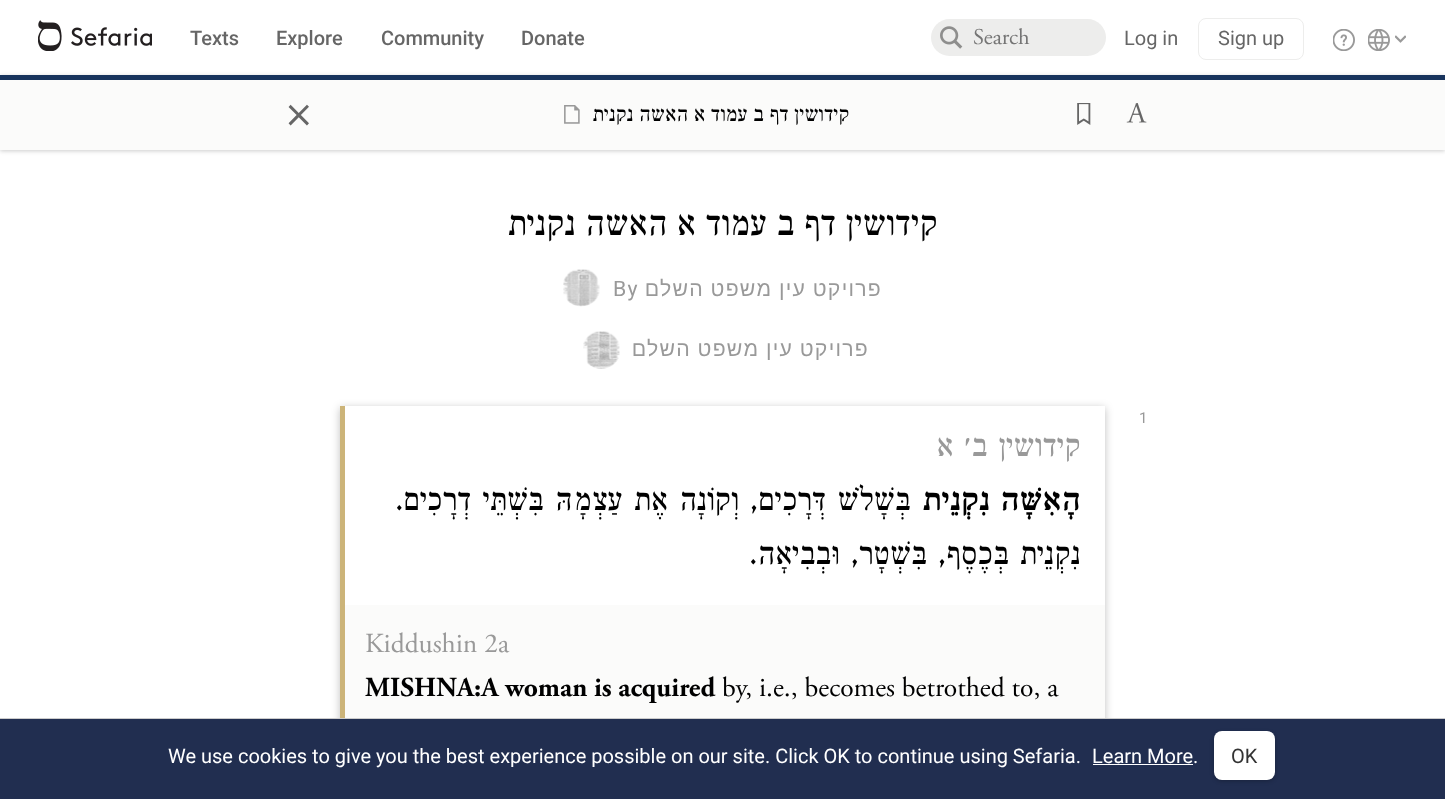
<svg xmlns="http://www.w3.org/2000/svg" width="1445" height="799">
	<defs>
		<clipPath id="clip1"><rect x="591" y="76" width="258" height="75" /></clipPath>
		<clipPath id="clip2"><path d="M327 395H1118V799H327ZM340 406H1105V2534H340Z" clip-rule="evenodd" /></clipPath>
	</defs>
	<rect width="100%" height="100%" fill="#FFFFFF" />
	<image x="38" y="20" width="114" height="31" href="assets/img1.png" />
	<g font-family="Roboto" font-size="20" font-weight="500" fill="#666666">
		<text x="190" y="45">Texts</text>
		<text x="276" y="45">Explore</text>
		<text x="381" y="45">Community</text>
		<text x="521" y="45">Donate</text>
	</g>
	<rect x="931" y="19" width="175" height="37" rx="18.5" fill="#EDEDEC" />
	<image x="940" y="26" width="23" height="23" href="assets/img2.png" />
	<text x="973" y="44" font-family="Adobe Garamond" font-size="22.5" fill="#757575">Search</text>
	<text x="1124" y="45" font-family="Roboto" font-size="20" fill="#666666">Log in</text>
	<rect x="1198.5" y="18.5" width="105" height="41" rx="7.5" fill="none" stroke="#EDEDEC" />
	<text x="1218" y="45" font-family="Roboto" font-size="20" fill="#666666">Sign up</text>
	<image x="1333" y="29" width="22" height="22" href="assets/img3.png" />
	<image x="1368" y="29" width="22" height="22" href="assets/img4.png" />
	<image x="1395" y="35" width="11" height="8" href="assets/img5.png" />
	<rect x="0" y="76" width="1445" height="75" fill="#000000" fill-opacity="0.2" filter="blur(2px)" />
	<rect x="0" y="75" width="1445" height="5" fill="#18345D" />
	<rect x="0" y="80" width="1445" height="70" fill="#FBFBFA" />
	<text x="285" y="126" font-family="Adobe Garamond" font-size="55" fill="#666666">×</text>
	<image x="564" y="105" width="16" height="19" href="assets/img6.png" />
	<g clip-path="url(#clip1)">
		<text x="849" y="121" word-spacing="-2" font-family="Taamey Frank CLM" font-size="22.5" font-weight="500" direction="rtl" fill="#000000">קידושין דף ב עמוד א האשה נקנית</text>
	</g>
	<image x="1077" y="103" width="14" height="22" href="assets/img7.png" />
	<image x="1126" y="103" width="21" height="20" href="assets/img8.png" />
	<text x="937" y="235" word-spacing="-3" font-family="Taamey Frank CLM" font-size="37.5" font-weight="500" direction="rtl" fill="#000000">קידושין דף ב עמוד א האשה נקנית</text>
	<image x="563" y="269" width="37" height="38" href="assets/img9.png" />
	<text x="613" y="296" font-family="Roboto" font-size="21.25" letter-spacing="1.25" fill="#999999">By</text>
	<text x="882" y="296" word-spacing="-0.5" font-family="Liberation Sans" font-size="21.25" letter-spacing="1.25" direction="rtl" fill="#999999">פרויקט עין משפט השלם</text>
	<image x="583" y="331" width="37" height="38" href="assets/img10.png" />
	<text x="869" y="356" word-spacing="-0.5" font-family="Liberation Sans" font-size="21.25" letter-spacing="1.25" direction="rtl" fill="#999999">פרויקט עין משפט השלם</text>
	<g clip-path="url(#clip2)">
		<rect x="340" y="408" width="765" height="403" fill="#000000" fill-opacity="0.25" filter="blur(4px)" />
	</g>
	<rect x="340" y="406" width="5" height="312" fill="#CCB479" />
	<text x="1139" y="423" font-family="Roboto" font-size="15" fill="#999999">1</text>
	<text x="1080" y="456" font-family="Taamey Frank CLM" font-size="33.5" font-weight="500" direction="rtl" fill="#999999">קידושין ב׳ א</text>
	<text x="910" y="510" font-family="Taamey Frank CLM" font-size="33.5" font-weight="500" direction="rtl" fill="#000000">בְּשָׁלֹשׁ דְּרָכִים, וְקוֹנָה אֶת עַצְמָהּ בִּשְׁתֵּי דְרָכִים.</text>
	<text x="1080" y="510" font-family="Taamey Frank CLM" font-size="33.5" font-weight="700" direction="rtl" fill="#000000">הָאִשָּׁה נִקְנֵית</text>
	<text x="1080" y="564" font-family="Taamey Frank CLM" font-size="33.5" font-weight="500" direction="rtl" fill="#000000">נִקְנֵית בְּכֶסֶף, בִּשְׁטָר, וּבְבִיאָה.</text>
	<rect x="345" y="605" width="760" height="113" fill="#FBFBFA" />
	<text x="365" y="652" font-family="Adobe Garamond" font-size="27.5" fill="#999999">Kiddushin 2a</text>
	<text x="365" y="696" font-family="Adobe Garamond" font-size="27.5" font-weight="700" fill="#000000">MISHNA:A woman is acquired</text>
	<text x="722" y="696" font-family="Adobe Garamond" font-size="27.5" fill="#000000">by, i.e., becomes betrothed to, a</text>
	<rect x="0" y="719" width="1445" height="80" fill="#212E50" />
	<rect x="0" y="718" width="1445" height="1" fill="#CCCCCC" />
	<g font-family="Roboto" font-size="20" fill="#FFFFFF">
		<text x="168" y="763">We use cookies to give you the best experience possible on our site. Click OK to continue using Sefaria.</text>
		<text x="1092" y="763">Learn More.</text>
	</g>
	<rect x="1093" y="764" width="100" height="1" fill="#FFFFFF" />
	<rect x="1214" y="733" width="61" height="48" rx="8" fill="#000000" fill-opacity="0.25" filter="blur(2px)" />
	<rect x="1214" y="731" width="61" height="49" rx="8" fill="#FFFFFF" />
	<text x="1231" y="763" font-family="Roboto" font-size="20" fill="#333333">OK</text>
</svg>
